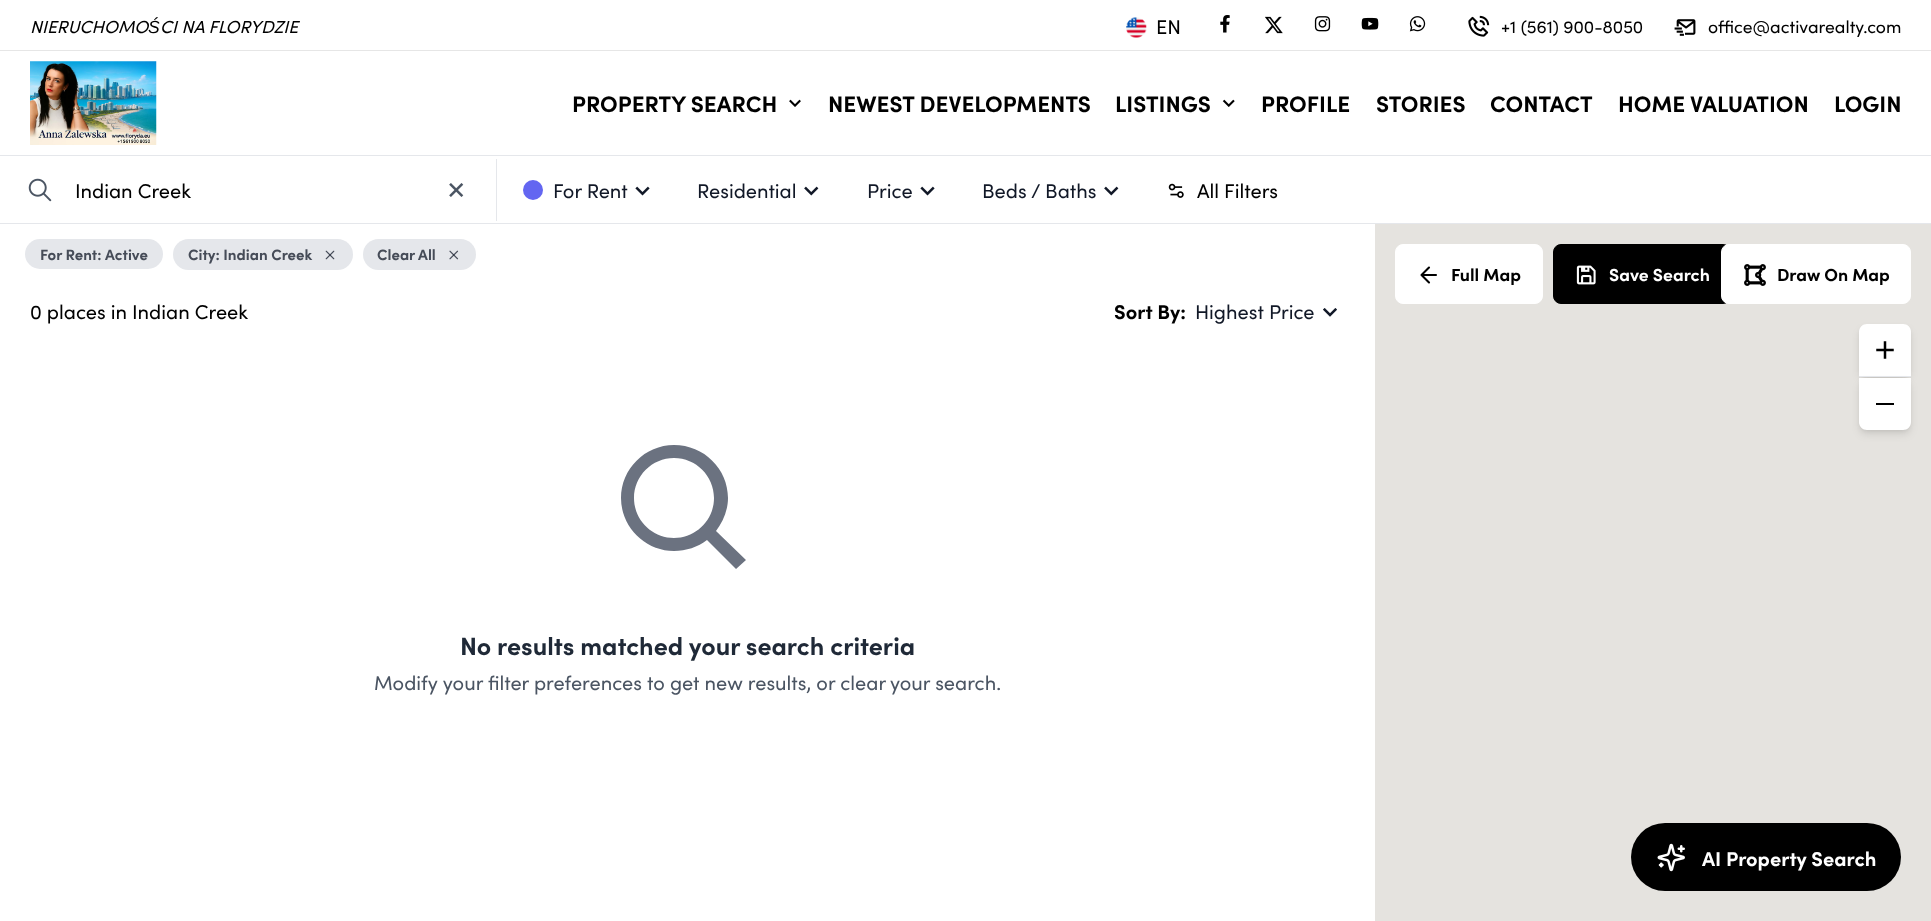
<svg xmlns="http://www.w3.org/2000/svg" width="1931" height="921">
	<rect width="100%" height="100%" fill="#FFFFFF" />
	<rect x="0" y="155" width="1931" height="1" fill="#E5E7EB" />
	<text x="30" y="33" font-family="Sofia" font-size="17.5" font-style="italic" fill="#000000">NIERUCHOMO</text>
	<text x="148" y="33" font-family="Liberation Sans" font-size="17.5" font-style="italic" fill="#000000">Ś</text>
	<text x="160" y="33" font-family="Sofia" font-size="17.5" font-style="italic" fill="#000000">CI NA FLORYDZIE</text>
	<image x="1126" y="17" width="21" height="21" href="assets/img1.png" />
	<text x="1156" y="34" font-family="Sofia" font-size="20" fill="#000000">EN</text>
	<image x="1220" y="15" width="10" height="18" href="assets/img2.png" />
	<image x="1265" y="16" width="18" height="18" href="assets/img3.png" />
	<image x="1314" y="16" width="17" height="16" href="assets/img4.png" />
	<image x="1361" y="17" width="18" height="13" href="assets/img5.png" />
	<image x="1409" y="16" width="17" height="16" href="assets/img6.png" />
	<image x="1468" y="15" width="22" height="22" href="assets/img7.png" />
	<text x="1501" y="33" font-family="Sofia" font-size="17.5" fill="#000000">+1 (561) 900-8050</text>
	<image x="1674" y="19" width="22" height="17" href="assets/img8.png" />
	<text x="1708" y="33" font-family="Sofia" font-size="17.5" fill="#000000">office@activarealty.com</text>
	<rect x="0" y="50" width="1931" height="1" fill="#E6E6E6" />
	<image x="30" y="61" width="127" height="84" href="assets/img9.png" />
	<text x="572" y="112" font-family="Sofia" font-size="22.5" font-weight="700" fill="#000000">PROPERTY SEARCH</text>
	<image x="789" y="99" width="12" height="8" href="assets/img10.png" />
	<g font-family="Sofia" font-size="22.5" font-weight="700" fill="#000000">
		<text x="828" y="112">NEWEST DEVELOPMENTS</text>
		<text x="1115" y="112">LISTINGS</text>
	</g>
	<image x="1222" y="99" width="13" height="8" href="assets/img11.png" />
	<g font-family="Sofia" font-size="22.5" font-weight="700" fill="#000000">
		<text x="1261" y="112">PROFILE</text>
		<text x="1376" y="112">STORIES</text>
		<text x="1490" y="112">CONTACT</text>
		<text x="1618" y="112">HOME VALUATION</text>
		<text x="1834" y="112">LOGIN</text>
	</g>
	<rect x="0" y="223" width="1931" height="1" fill="#E5E7EB" />
	<rect x="496" y="159" width="1" height="62" fill="#E5E7EB" />
	<image x="28" y="178" width="24" height="24" href="assets/img12.png" />
	<text x="75" y="198" font-family="Sofia" font-size="20" fill="#000000">Indian Creek</text>
	<image x="449" y="183" width="15" height="14" href="assets/img13.png" />
	<circle cx="533" cy="190" r="10" fill="#6366F1" />
	<text x="553" y="198" font-family="Sofia" font-size="20" fill="#111827">For Rent</text>
	<image x="635" y="186" width="15" height="10" href="assets/img14.png" />
	<text x="697" y="198" font-family="Sofia" font-size="20" fill="#111827">Residential</text>
	<image x="804" y="186" width="15" height="10" href="assets/img15.png" />
	<text x="867" y="198" font-family="Sofia" font-size="20" fill="#111827">Price</text>
	<image x="920" y="186" width="15" height="10" href="assets/img14.png" />
	<text x="982" y="198" font-family="Sofia" font-size="20" fill="#111827">Beds / Baths</text>
	<image x="1104" y="186" width="15" height="10" href="assets/img15.png" />
	<image x="1168" y="183" width="16" height="15" href="assets/img16.png" />
	<text x="1197" y="198" font-family="Sofia" font-size="20" fill="#000000">All Filters</text>
	<rect x="25" y="239" width="138" height="30" rx="15" fill="#E5E7EB" />
	<g font-family="Sofia" font-size="15" font-weight="700" fill="#464C58">
		<text x="40" y="260">For Rent:</text>
		<text x="105" y="260">Active</text>
	</g>
	<rect x="173" y="239" width="180" height="31" rx="15.5" fill="#E5E7EB" />
	<text x="188" y="260" font-family="Sofia" font-size="15" font-weight="700" fill="#464C58">City: Indian Creek</text>
	<image x="325" y="250" width="10" height="10" href="assets/img17.png" />
	<rect x="363" y="239" width="113" height="31" rx="15.5" fill="#E5E7EB" />
	<text x="377" y="260" font-family="Sofia" font-size="15" font-weight="700" fill="#464C58">Clear All</text>
	<image x="449" y="250" width="10" height="10" href="assets/img18.png" />
	<text x="30" y="319" font-family="Sofia" font-size="20" fill="#000000">0 places in Indian Creek</text>
	<text x="1114" y="319" font-family="Sofia" font-size="20" font-weight="700" fill="#000000">Sort By:</text>
	<text x="1195" y="319" font-family="Sofia" font-size="20" fill="#111827">Highest Price</text>
	<image x="1323" y="308" width="14" height="9" href="assets/img19.png" />
	<path d="M674 551C686 551 698 547 707 540L736 569L746 560L716 531C723 522 728 510 728 498C728 469 704 445 674 445C645 445 621 469 621 498C621 527 645 551 674 551ZM674 458C696 458 714 476 714 498C714 520 696 538 674 538C652 538 634 520 634 498C634 476 652 458 674 458Z" fill="#6B7280" />
	<text x="460" y="655" font-family="Sofia" font-size="25" font-weight="700" fill="#1F2937">No results matched your search criteria</text>
	<g font-family="Sofia" font-size="20" fill="#4B5563">
		<text x="374" y="690">Modify your filter preferences to get new results, or clear</text>
		<text x="890" y="690">your search.</text>
	</g>
	<rect x="1375" y="224" width="556" height="697" fill="#E5E3DF" />
	<rect x="1395.5" y="244.5" width="147" height="59" rx="7.5" fill="#FFFFFF" stroke="#FFFFFF" />
	<path d="M1429 282.5L1421.5 275L1429 267.5M1436 275H1421.5" fill="none" stroke="#000000" stroke-width="2.1" stroke-linecap="round" stroke-linejoin="round" />
	<text x="1451" y="281" font-family="Sofia" font-size="17.5" font-weight="700" fill="#000000">Full Map</text>
	<rect x="1553.5" y="244.5" width="177" height="59" rx="7.5" fill="#000000" stroke="#000000" />
	<image x="1576" y="265" width="20" height="20" href="assets/img20.png" />
	<text x="1609" y="281" font-family="Sofia" font-size="17.5" font-weight="700" fill="#FFFFFF">Save Search</text>
	<rect x="1721.5" y="244.5" width="189" height="59" rx="7.5" fill="#FFFFFF" stroke="#FFFFFF" />
	<image x="1744" y="264" width="22" height="22" href="assets/img21.png" />
	<text x="1777" y="281" font-family="Sofia" font-size="17.5" font-weight="700" fill="#000000">Draw On Map</text>
	<rect x="1861" y="329" width="48" height="47" rx="5" fill="#000000" fill-opacity="0.1" filter="blur(2.5px)" />
	<rect x="1860" y="330" width="50" height="50" rx="6" fill="#000000" fill-opacity="0.1" filter="blur(4px)" />
	<path d="M1867 324H1903C1907.5 324 1911 327.5 1911 332V376H1859V332C1859 327.5 1862.5 324 1867 324Z" fill="#FFFFFF" />
	<image x="1876" y="341" width="18" height="18" href="assets/img22.png" />
	<rect x="1861" y="381" width="48" height="49" rx="5" fill="#000000" fill-opacity="0.1" filter="blur(2.5px)" />
	<rect x="1860" y="383" width="50" height="51" rx="6" fill="#000000" fill-opacity="0.1" filter="blur(4px)" />
	<path d="M1859 378H1911V422C1911 426.5 1907.5 430 1903 430H1867C1862.5 430 1859 426.5 1859 422Z" fill="#FFFFFF" />
	<rect x="1859" y="376" width="52" height="1" fill="#E5E7EB" />
	<rect x="1876" y="403" width="18" height="2" fill="#000000" />
	<rect x="1631" y="823" width="270" height="68" rx="34" fill="#000000" />
	<image x="1657" y="843" width="28" height="29" href="assets/img23.png" />
	<text x="1702" y="866" font-family="Sofia" font-size="20" font-weight="700" fill="#FFFFFF">AI Property Search</text>
</svg>
